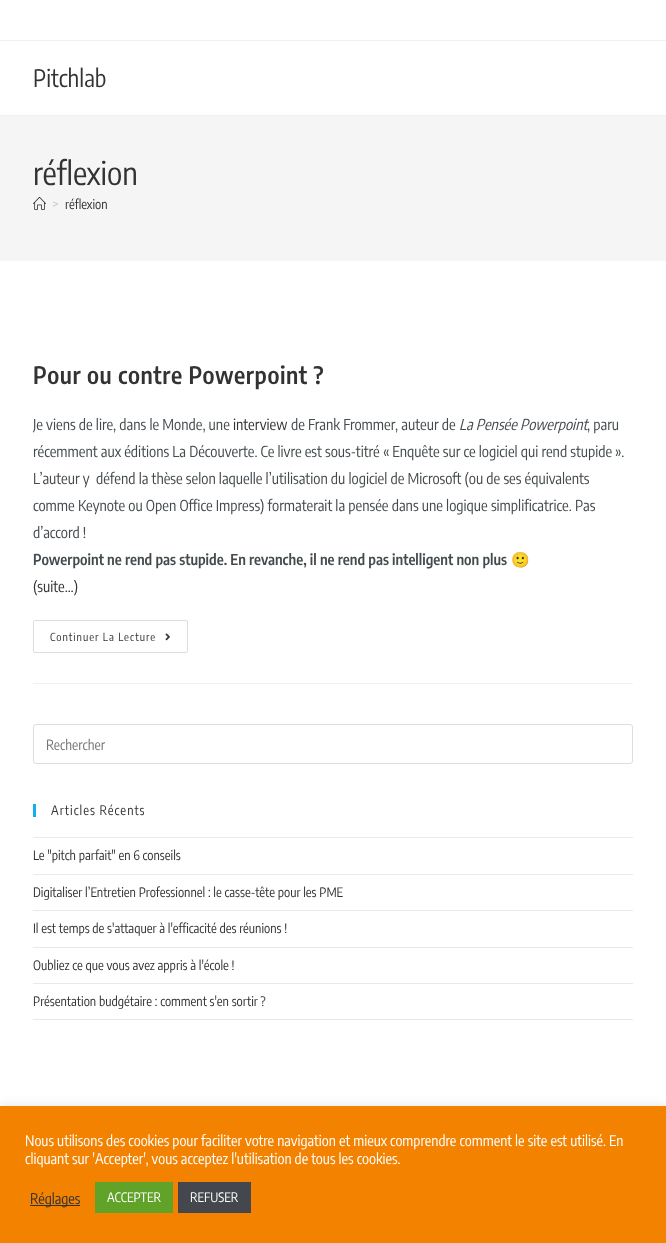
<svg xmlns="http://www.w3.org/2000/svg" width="666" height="1243">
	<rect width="100%" height="100%" fill="#FFFFFF" />
	<rect x="0" y="40" width="666" height="1" fill="#F1F1F1" />
	<rect x="0" y="115" width="666" height="1" fill="#F1F1F1" />
	<text x="33" y="87" font-family="Encode Sans Condensed" font-size="24" fill="#333333">Pitchlab</text>
	<rect x="0" y="116" width="666" height="145" fill="#F5F5F5" />
	<text x="33" y="185" font-family="Encode Sans Condensed" font-size="32" fill="#333333">réflexion</text>
	<image x="33" y="196" width="13" height="14" href="assets/img1.png" />
	<text x="52" y="209" font-family="Encode Sans Condensed" font-size="13" fill="#C6C6C6">&gt;</text>
	<text x="65" y="209" font-family="Encode Sans Condensed" font-size="13" fill="#333333">réflexion</text>
	<rect x="33" y="683" width="600" height="1" fill="#F1F1F1" />
	<text x="33" y="384" font-family="Encode Sans Condensed" font-size="24" font-weight="600" letter-spacing="0.6" fill="#333333">Pour ou contre Powerpoint ?</text>
	<text x="33" y="430" font-family="Encode Sans Condensed" font-size="15" fill="#444B4E">Je viens de lire, dans le Monde, une</text>
	<text x="233" y="430" font-family="Encode Sans Condensed" font-size="15" fill="#333333">interview</text>
	<text x="291" y="430" font-family="Encode Sans Condensed" font-size="15" fill="#444B4E">de Frank Frommer, auteur de</text>
	<text x="459" y="430" font-family="Encode Sans Condensed" font-size="15" font-style="italic" fill="#444B4E">La Pensée Powerpoint</text>
	<g font-family="Encode Sans Condensed" font-size="15" fill="#444B4E">
		<text x="587" y="430">, paru</text>
		<text x="33" y="457">récemment aux éditions La Découverte. Ce livre est sous-titré « Enquête sur ce logiciel qui rend stupide ».</text>
		<text x="33" y="484" xml:space="preserve">L’auteur y  défend la thèse selon laquelle l’utilisation du logiciel de Microsoft (ou de ses équivalents</text>
		<text x="33" y="511">comme Keynote ou Open Office Impress) formaterait la pensée dans une logique simplificatrice. Pas</text>
		<text x="33" y="538">d’accord !</text>
	</g>
	<text x="33" y="565" font-family="Encode Sans Condensed" font-size="15" font-weight="600" fill="#444B4E">Powerpoint ne rend pas stupide. En revanche, il ne rend pas intelligent non plus</text>
	<text x="511" y="565" font-family="Noto Color Emoji" font-size="15" fill="#444B4E">🙂</text>
	<text x="33" y="592" font-family="Encode Sans Condensed" font-size="15" fill="#333333">(suite…)</text>
	<rect x="33.5" y="620.5" width="154" height="32" rx="1.5" fill="none" stroke="#DDDDDD" />
	<text x="50" y="641" font-family="Encode Sans Condensed" font-size="11" letter-spacing="1" fill="#333333">Continuer La Lecture</text>
	<image x="165" y="633" width="5" height="8" href="assets/img2.png" />
	<rect x="33.5" y="724.5" width="599" height="39" rx="2.5" fill="none" stroke="#DDDDDD" />
	<text x="46" y="750" font-family="Encode Sans Condensed" font-size="14" fill="#757575">Rechercher</text>
	<rect x="33" y="804" width="3" height="13" fill="#13AFF0" />
	<text x="51" y="815" font-family="Encode Sans Condensed" font-size="13" letter-spacing="1" fill="#333333">Articles Récents</text>
	<rect x="33" y="837" width="600" height="1" fill="#E9E9E9" />
	<rect x="33" y="874" width="600" height="1" fill="#E9E9E9" />
	<text x="33" y="860" font-family="Encode Sans Condensed" font-size="13" fill="#333333">Le "pitch parfait" en 6 conseils</text>
	<rect x="33" y="910" width="600" height="1" fill="#E9E9E9" />
	<text x="33" y="897" font-family="Encode Sans Condensed" font-size="13" fill="#333333">Digitaliser l’Entretien Professionnel : le casse-tête pour les PME</text>
	<rect x="33" y="947" width="600" height="1" fill="#E9E9E9" />
	<text x="33" y="933" font-family="Encode Sans Condensed" font-size="13" fill="#333333">Il est temps de s'attaquer à l'efficacité des réunions !</text>
	<rect x="33" y="983" width="600" height="1" fill="#E9E9E9" />
	<text x="33" y="970" font-family="Encode Sans Condensed" font-size="13" fill="#333333">Oubliez ce que vous avez appris à l'école !</text>
	<rect x="33" y="1019" width="600" height="1" fill="#E9E9E9" />
	<text x="33" y="1006" font-family="Encode Sans Condensed" font-size="13" fill="#333333">Présentation budgétaire : comment s'en sortir ?</text>
	<rect x="0" y="1105" width="666" height="137" fill="#ACABAB" fill-opacity="0.3" filter="blur(5px)" />
	<rect x="0" y="1106" width="666" height="137" fill="#F28200" />
	<g font-family="Encode Sans Condensed" font-size="14.65" fill="#FFFFFF">
		<text x="25" y="1146">Nous utilisons des cookies pour faciliter votre navigation et mieux comprendre comment le site est utilisé. En</text>
		<text x="25" y="1164">cliquant sur 'Accepter', vous acceptez l'utilisation de tous les cookies.</text>
	</g>
	<rect x="30" y="1205" width="50" height="1" fill="#333333" />
	<text x="30" y="1204" font-family="Encode Sans Condensed" font-size="14.65" fill="#333333">Réglages</text>
	<rect x="95" y="1182" width="78" height="31" fill="#61A229" />
	<text x="107" y="1202" font-family="Encode Sans Condensed" font-size="13" fill="#FFFFFF">ACCEPTER</text>
	<rect x="178" y="1182" width="73" height="31" fill="#44484E" />
	<text x="190" y="1202" font-family="Encode Sans Condensed" font-size="13" fill="#FFFFFF">REFUSER</text>
</svg>
